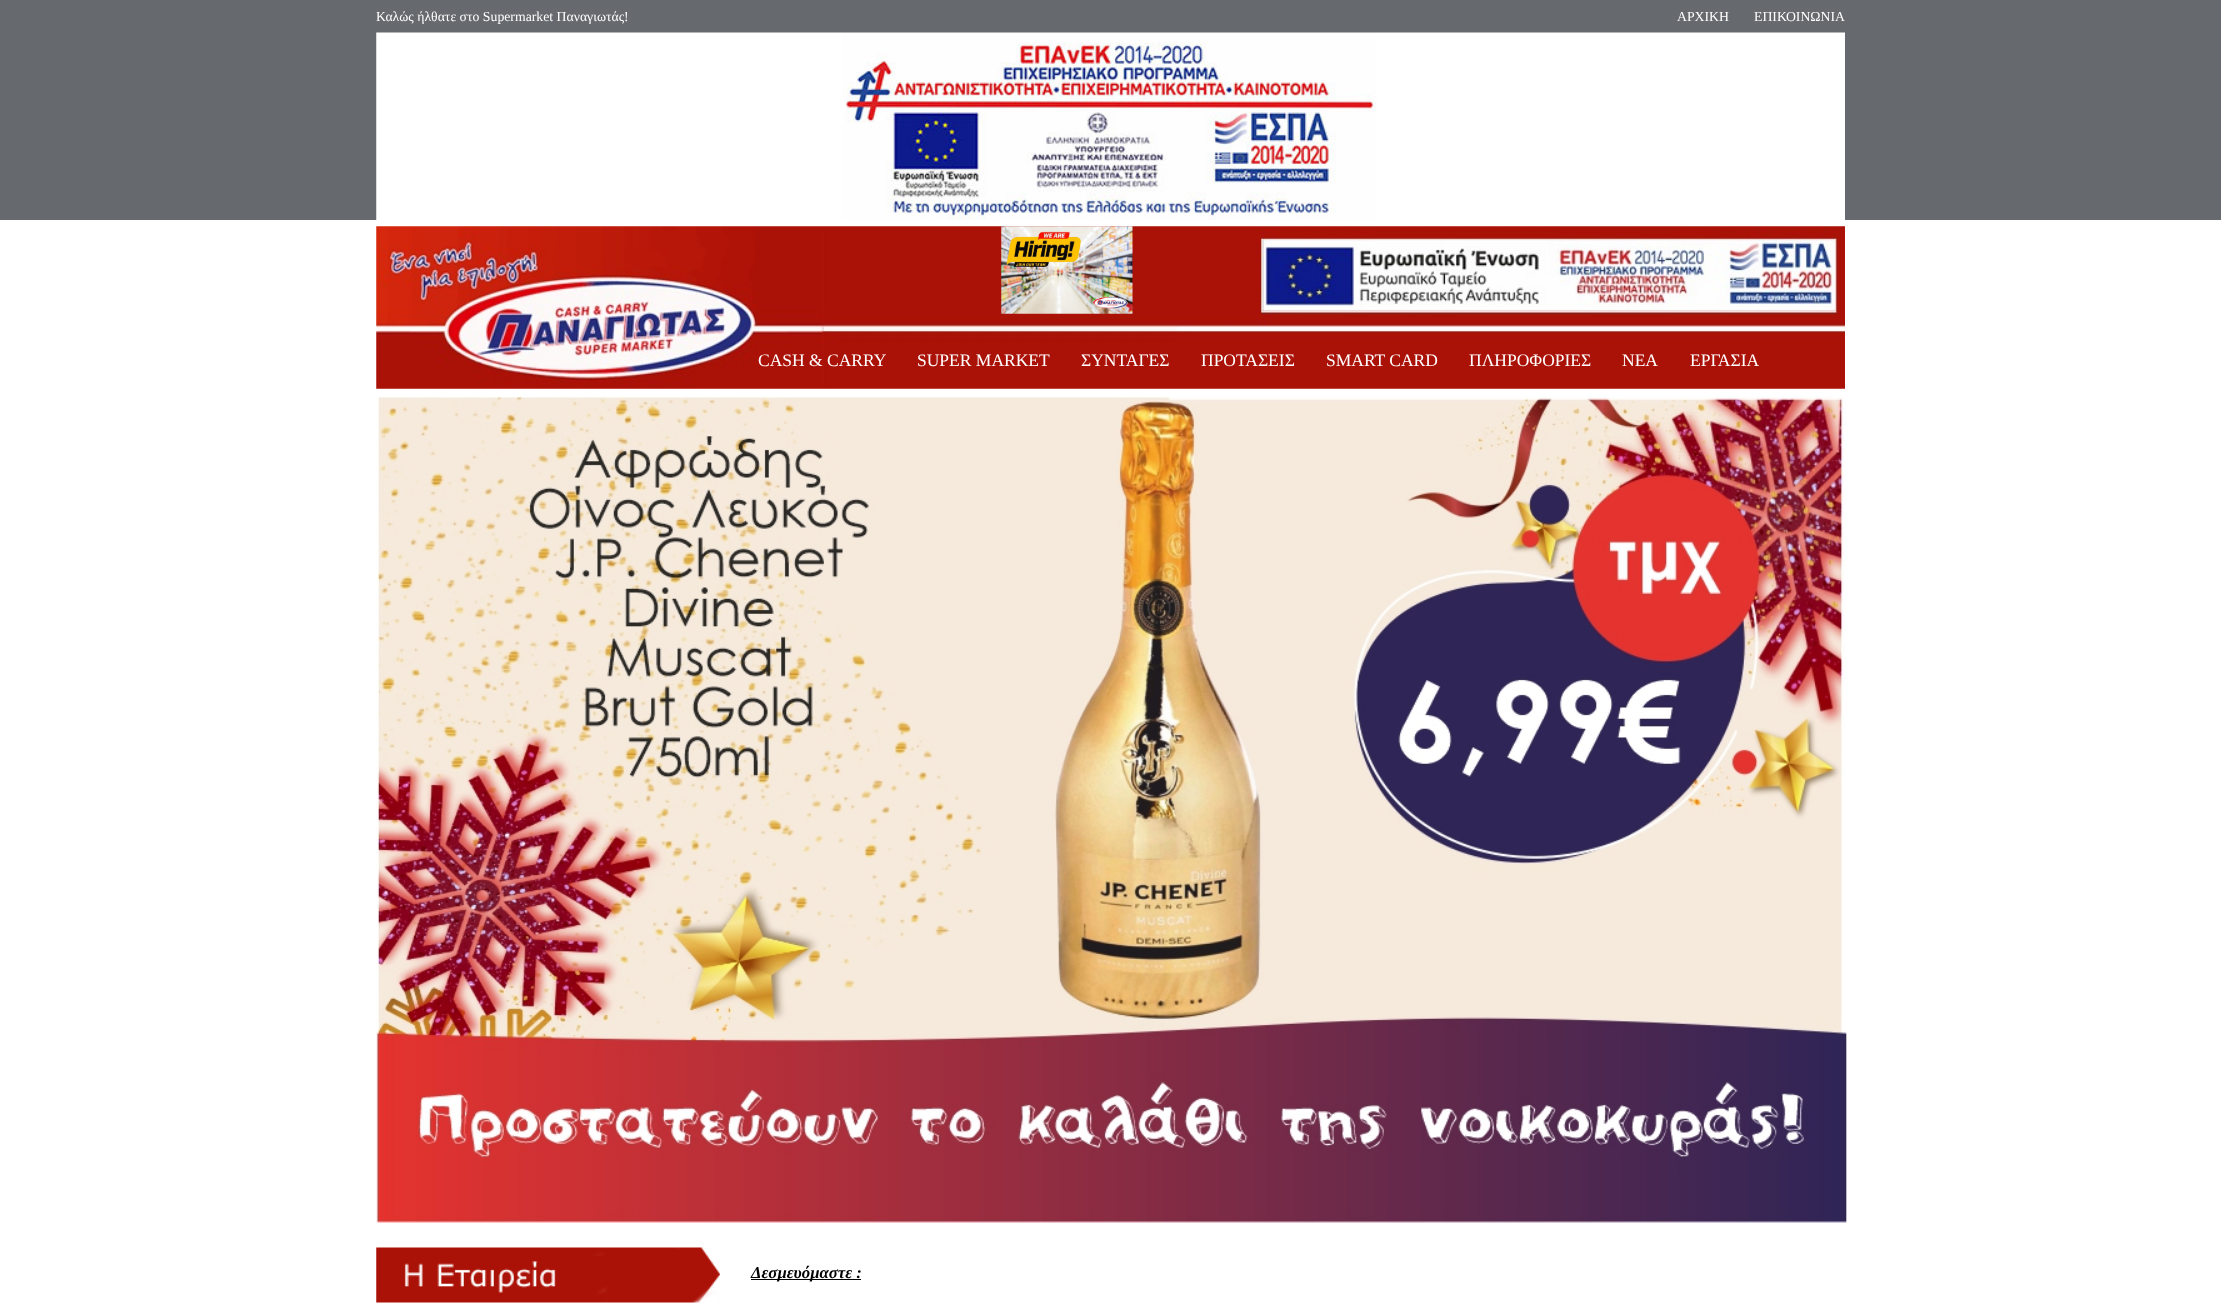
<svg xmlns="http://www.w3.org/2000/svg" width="2221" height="1303">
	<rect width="100%" height="100%" fill="#66696E" />
	<g font-family="Liberation Serif" font-size="13.75" fill="#FFFFFF">
		<text x="376" y="21">Καλώς ήλθατε στο Supermarket Παναγιωτάς!</text>
		<text x="1677" y="21">ΑΡΧΙΚΗ</text>
		<text x="1754" y="21">ΕΠΙΚΟΙΝΩΝΙΑ</text>
	</g>
	<image x="376" y="32" width="1469" height="188" href="assets/img1.png" />
	<rect x="0" y="220" width="2221" height="1083" fill="#FFFFFF" />
	<image x="376" y="226" width="1469" height="163" href="assets/img2.png" />
	<image x="1001" y="226" width="132" height="88" href="assets/img3.png" />
	<g font-family="Liberation Serif" font-size="17.5" fill="#FFFFFF">
		<text x="758" y="366">CASH &amp; CARRY</text>
		<text x="917" y="366">SUPER MARKET</text>
		<text x="1081" y="366">ΣΥΝΤΑΓΕΣ</text>
		<text x="1201" y="366">ΠΡΟΤΑΣΕΙΣ</text>
		<text x="1326" y="366">SMART CARD</text>
		<text x="1469" y="366">ΠΛΗΡΟΦΟΡΙΕΣ</text>
		<text x="1622" y="366">ΝΕΑ</text>
		<text x="1690" y="366">ΕΡΓΑΣΙΑ</text>
	</g>
	<image x="376" y="395" width="1471" height="828" href="assets/img4.png" />
	<image x="376" y="1247" width="344" height="56" href="assets/img5.png" />
	<rect x="751" y="1279" width="110" height="1" fill="#000000" />
	<text x="751" y="1278" font-family="Liberation Serif" font-size="16.75" font-weight="700" font-style="italic" fill="#000000">Δεσμευόμαστε :</text>
</svg>
